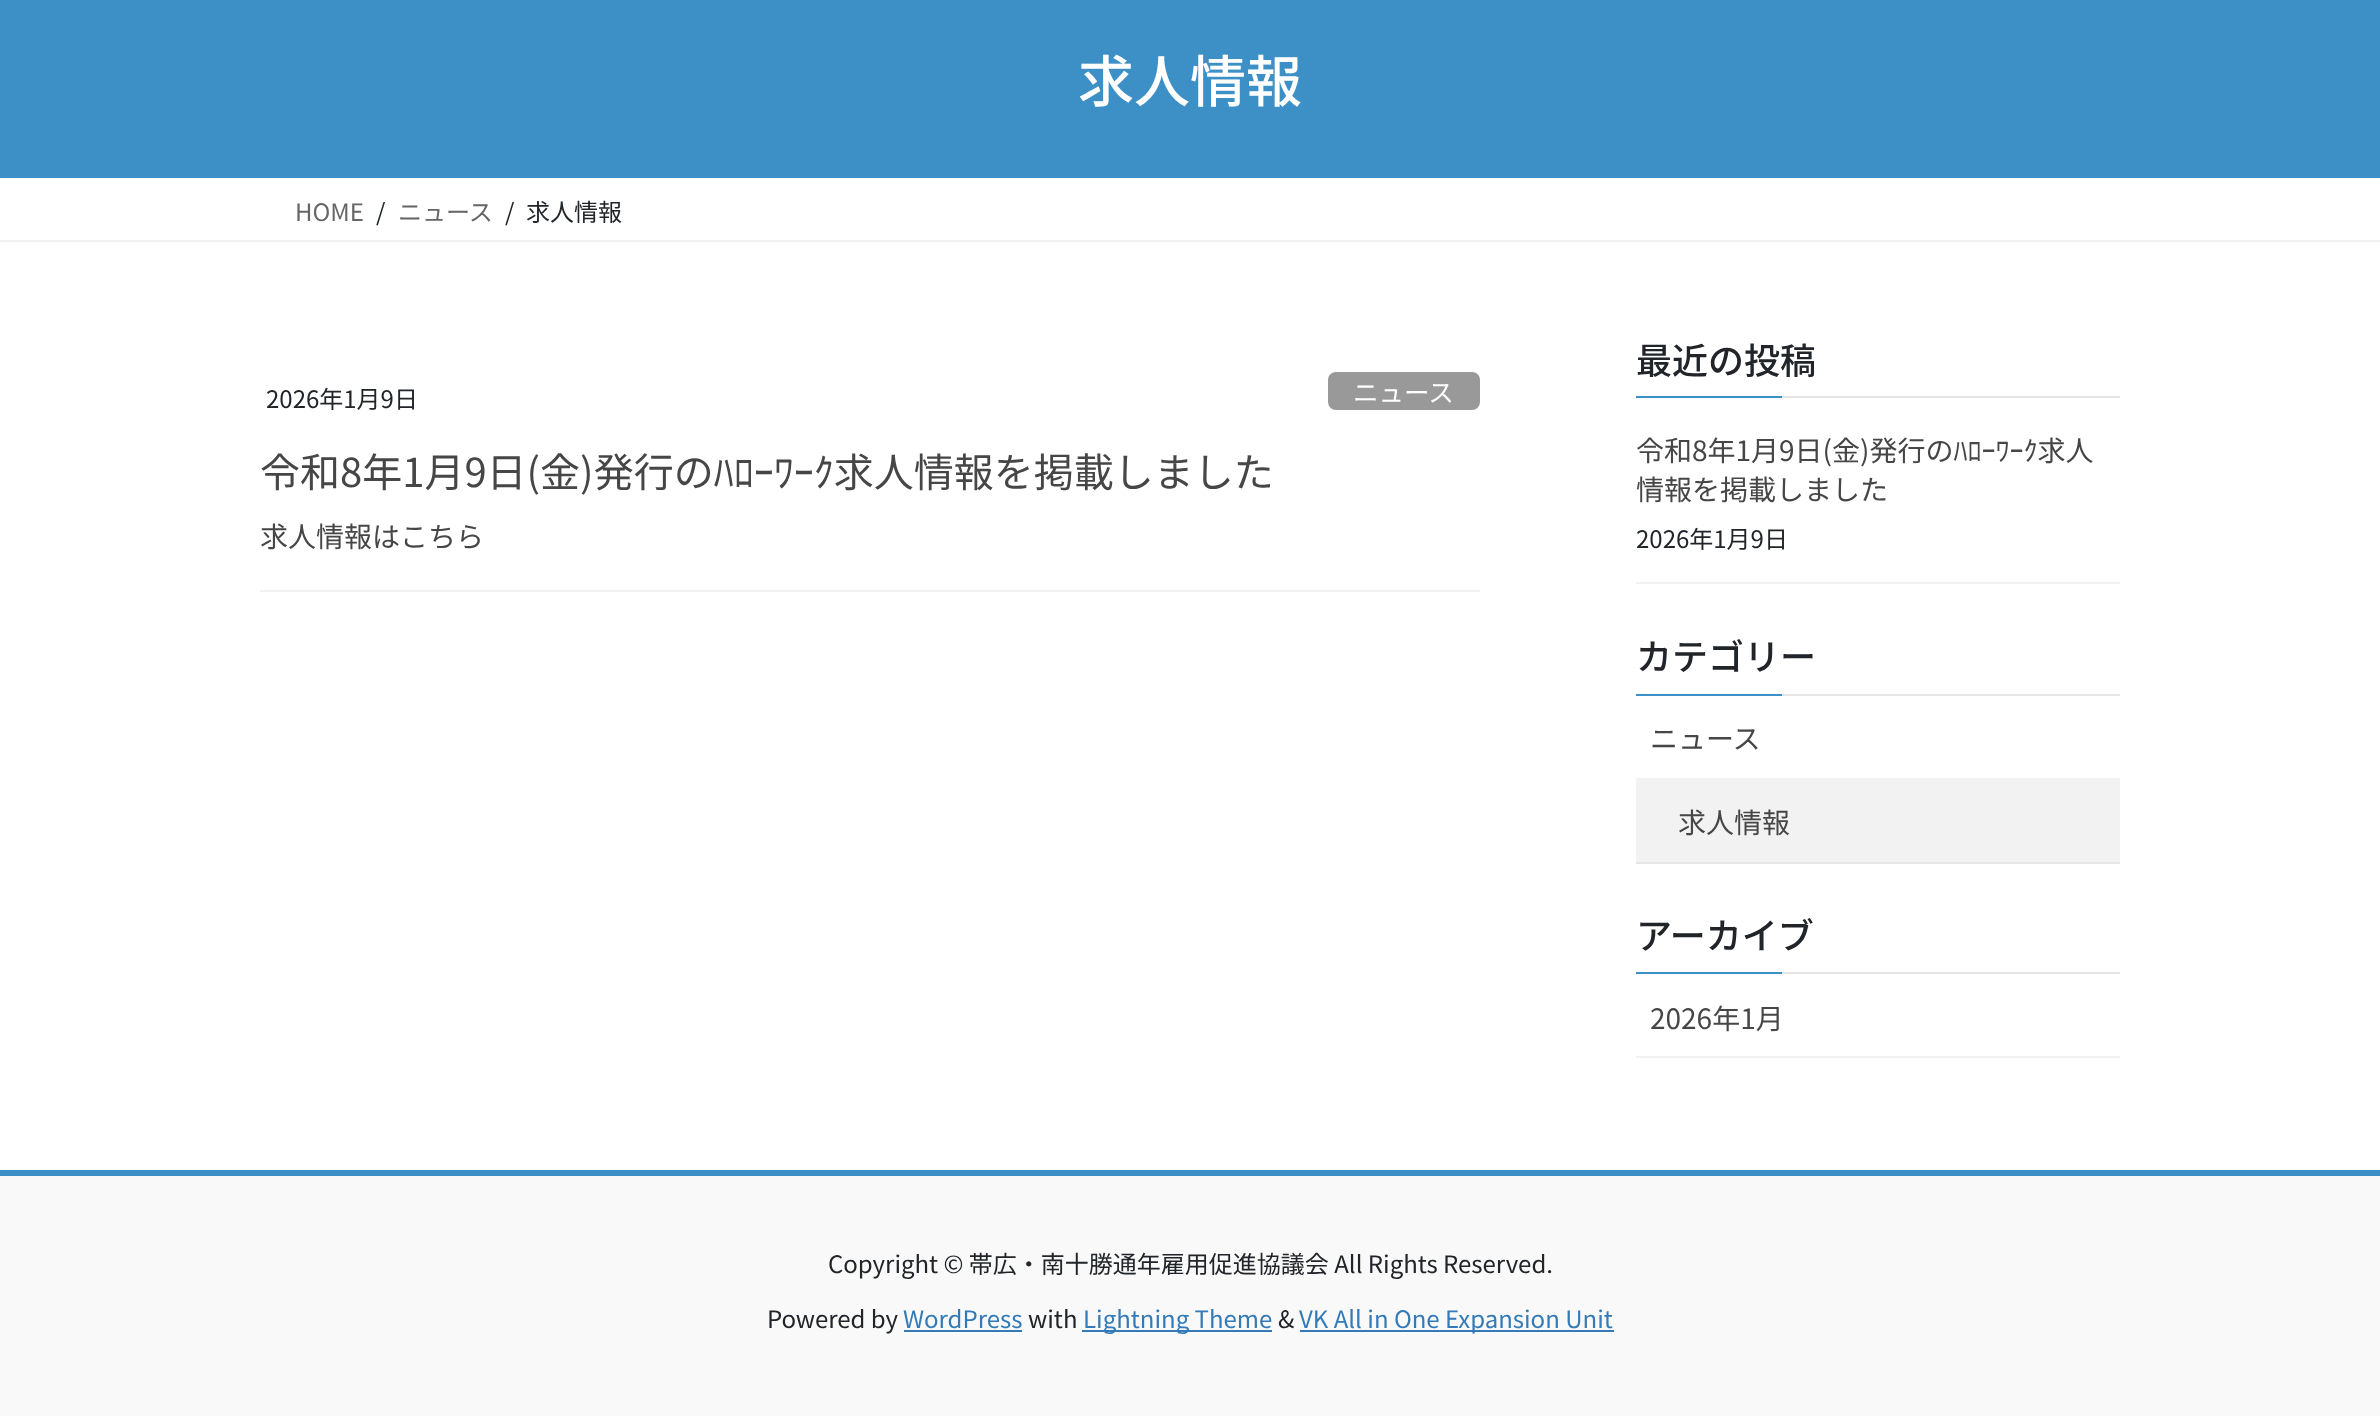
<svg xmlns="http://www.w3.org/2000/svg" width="2380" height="1416">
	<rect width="100%" height="100%" fill="#FFFFFF" />
	<rect x="0" y="0" width="2380" height="178" fill="#3D90C6" />
	<text x="1078" y="102" font-family="Noto Sans JP" font-size="56" font-weight="500" fill="#FFFFFF">求人情報</text>
	<rect x="0" y="240" width="2380" height="2" fill="#F2F2F2" />
	<text x="295" y="221" font-family="Noto Sans JP" font-size="24" fill="#666666">HOME</text>
	<text x="376" y="221" font-family="Noto Sans JP" font-size="24" fill="#212529">/</text>
	<text x="398" y="221" font-family="Noto Sans JP" font-size="24" fill="#666666">ニュース</text>
	<g font-family="Noto Sans JP" font-size="24" fill="#212529">
		<text x="505" y="221">/</text>
		<text x="526" y="221">求人情報</text>
	</g>
	<rect x="260" y="590" width="1220" height="2" fill="#F2F2F2" />
	<text x="266" y="408" font-family="Noto Sans JP" font-size="24" fill="#212529">2026年1月9日</text>
	<rect x="1328" y="372" width="152" height="38" rx="8" fill="#999999" />
	<text x="1353" y="402" font-family="Noto Sans JP" font-size="25.5" fill="#FFFFFF">ニュース</text>
	<text x="260" y="487" font-family="Noto Sans JP" font-size="40" fill="#464646">令和8年1月9日(金)発行のﾊﾛｰﾜｰｸ求人情報を掲載しました</text>
	<text x="260" y="547" font-family="Noto Sans JP" font-size="28" fill="#464646">求人情報はこちら</text>
	<rect x="1782" y="396" width="338" height="2" fill="#E6E6E6" />
	<text x="1636" y="374" font-family="Noto Sans JP" font-size="36" font-weight="500" fill="#212529">最近の投稿</text>
	<rect x="1636" y="396" width="146" height="2" fill="#3D90C6" />
	<rect x="1636" y="582" width="484" height="2" fill="#F2F2F2" />
	<g font-family="Noto Sans JP" font-size="28" fill="#464646">
		<text x="1636" y="461">令和8年1月9日(金)発行のﾊﾛｰﾜｰｸ求人</text>
		<text x="1636" y="500">情報を掲載しました</text>
	</g>
	<text x="1636" y="548" font-family="Noto Sans JP" font-size="24" fill="#212529">2026年1月9日</text>
	<rect x="1782" y="694" width="338" height="2" fill="#E6E6E6" />
	<text x="1636" y="670" font-family="Noto Sans JP" font-size="36" font-weight="500" fill="#212529">カテゴリー</text>
	<rect x="1636" y="694" width="146" height="2" fill="#3D90C6" />
	<rect x="1636" y="778" width="484" height="84" fill="#F2F2F2" />
	<text x="1650" y="749" font-family="Noto Sans JP" font-size="28" fill="#464646">ニュース</text>
	<rect x="1636" y="862" width="484" height="2" fill="#E6E6E6" />
	<text x="1678" y="833" font-family="Noto Sans JP" font-size="28" fill="#464646">求人情報</text>
	<rect x="1782" y="972" width="338" height="2" fill="#E6E6E6" />
	<text x="1636" y="949" font-family="Noto Sans JP" font-size="36" font-weight="500" fill="#212529">アーカイブ</text>
	<rect x="1636" y="972" width="146" height="2" fill="#3D90C6" />
	<rect x="1636" y="1056" width="484" height="2" fill="#F2F2F2" />
	<text x="1650" y="1029" font-family="Noto Sans JP" font-size="28" fill="#464646">2026年1月</text>
	<rect x="0" y="1176" width="2380" height="240" fill="#F9F9F9" />
	<rect x="0" y="1170" width="2380" height="6" fill="#3D90C6" />
	<g font-family="Noto Sans JP" font-size="24" fill="#212529">
		<text x="828" y="1273">Copyright © 帯広・南十勝通年雇用促進協議会 All Rights Reserved.</text>
		<text x="767" y="1328">Powered by</text>
	</g>
	<text x="903" y="1328" font-family="Noto Sans JP" font-size="24" fill="#337AB7">WordPress</text>
	<rect x="904" y="1330" width="118" height="2" fill="#337AB7" />
	<text x="1028" y="1328" font-family="Noto Sans JP" font-size="24" fill="#212529">with</text>
	<rect x="1082" y="1330" width="190" height="2" fill="#337AB7" />
	<text x="1083" y="1328" font-family="Noto Sans JP" font-size="24" fill="#337AB7">Lightning Theme</text>
	<text x="1278" y="1328" font-family="Noto Sans JP" font-size="24" fill="#212529">&amp;</text>
	<rect x="1300" y="1330" width="314" height="2" fill="#337AB7" />
	<text x="1299" y="1328" font-family="Noto Sans JP" font-size="24" fill="#337AB7">VK All in One Expansion Unit</text>
</svg>
